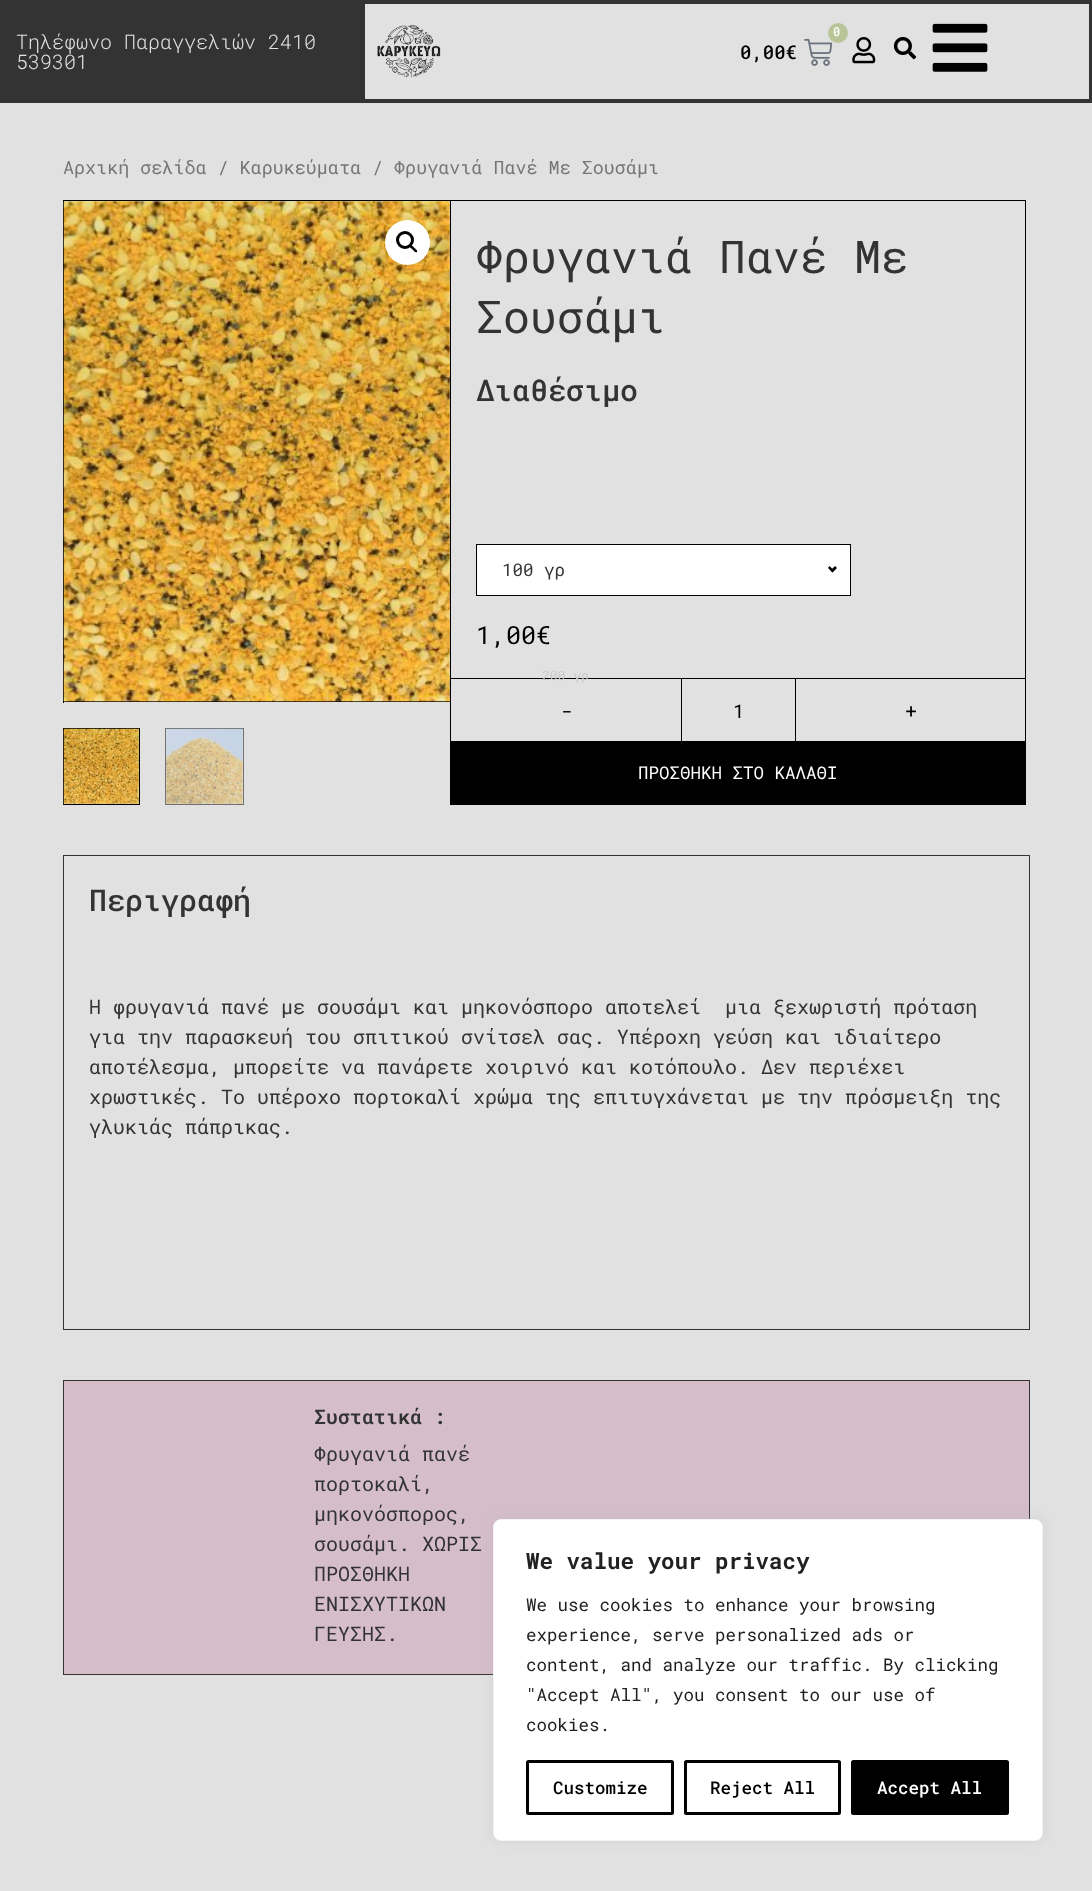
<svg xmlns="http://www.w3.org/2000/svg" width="1092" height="1891">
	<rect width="100%" height="100%" fill="#E1E1E1" />
	<rect x="2" y="2" width="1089" height="99" fill="none" stroke="#333333" stroke-width="4" />
	<rect x="4" y="4" width="361" height="95" fill="#333333" />
	<g font-family="Roboto Mono" font-size="20" font-weight="300" fill="#E1E1E1">
		<text x="16" y="49">Τηλέφωνο Παραγγελιών 2410</text>
		<text x="16" y="69">539301</text>
	</g>
	<image x="377" y="25" width="64" height="53" href="assets/img1.png" />
	<image x="804" y="38" width="29" height="28" href="assets/img2.png" />
	<circle cx="838" cy="33" r="10" fill="#B9C599" />
	<text x="833" y="36" font-family="Roboto Mono" font-size="12" font-weight="500" fill="#FFFFFF">0</text>
	<text x="740" y="59" font-family="Roboto Mono" font-size="19" font-weight="500" fill="#000000">0,00€</text>
	<image x="852" y="37" width="24" height="27" href="assets/img3.png" />
	<image x="893" y="37" width="24" height="23" href="assets/img4.png" />
	<image x="932" y="23" width="56" height="49" href="assets/img5.png" />
	<text x="63" y="174" font-family="Roboto Mono" font-size="18.4" fill="#767676">Αρχική σελίδα / Καρυκεύματα / Φρυγανιά Πανέ Με Σουσάμι</text>
	<rect x="63" y="200" width="387" height="1" fill="#000000" />
	<rect x="63" y="701" width="387" height="1" fill="#000000" />
	<rect x="63" y="200" width="1" height="503" fill="#000000" />
	<image x="449" y="201" width="1" height="501" href="assets/img7.png" />
	<image x="63" y="201" width="387" height="501" href="assets/img6.png" />
	<circle cx="407.5" cy="242.5" r="22.5" fill="#FFFFFF" />
	<circle cx="405" cy="240" r="7.5" fill="none" stroke="#000000" stroke-width="3" />
	<path d="M409.5 245C411 243.5 413.5 247 414 247.5C415 248.5 418 250.5 417 252C415.5 253.5 413 250 412.5 249.5C411.5 248.5 408.5 246.5 409.5 245Z" fill="#000000" />
	<rect x="63.5" y="728.5" width="76" height="76" fill="none" stroke="#000000" />
	<image x="63" y="728" width="76" height="76" href="assets/img8.png" />
	<rect x="165.5" y="728.5" width="78" height="76" fill="none" stroke="#717171" />
	<image x="166" y="728" width="77" height="76" href="assets/img9.png" />
	<rect x="450.5" y="200.5" width="575" height="604" fill="none" stroke="#000000" />
	<g font-family="Roboto Mono" font-size="45" fill="#333333">
		<text x="476" y="273">Φρυγανιά Πανέ Με</text>
		<text x="476" y="333">Σουσάμι</text>
	</g>
	<text x="476" y="401" font-family="Roboto Mono" font-size="30" font-weight="500" fill="#333333">Διαθέσιμο</text>
	<rect x="476.5" y="544.5" width="374" height="51" fill="#FFFFFF" stroke="#000000" />
	<text x="502" y="576" font-family="Roboto Mono" font-size="17.5" fill="#333333">100 γρ</text>
	<path d="M835 566L837 568L832.5 572.5L830.5 570.5Z" fill="#000000" />
	<path d="M829.5 566L834 570.5L832.5 572.5L828 568Z" fill="#000000" />
	<rect x="451" y="678" width="574" height="1" fill="#000000" />
	<text x="542" y="680" font-family="Roboto Mono" font-size="13" fill="#CACACA">200 γρ</text>
	<text x="476" y="644" font-family="Roboto Mono" font-size="25" fill="#000000">1,00€</text>
	<text x="561" y="718" font-family="Roboto Mono" font-size="20" fill="#000000">-</text>
	<rect x="795" y="679" width="1" height="62" fill="#000000" />
	<rect x="681" y="679" width="1" height="62" fill="#000000" />
	<text x="733" y="718" font-family="Roboto Mono" font-size="19" fill="#000000">1</text>
	<text x="905" y="718" font-family="Roboto Mono" font-size="20" fill="#000000">+</text>
	<rect x="451" y="741" width="574" height="63" fill="#000000" />
	<text x="638" y="779" font-family="Roboto Mono" font-size="17.5" fill="#FFFFFF">ΠΡΟΣΘΗΚΗ ΣΤΟ ΚΑΛΑΘΙ</text>
	<rect x="63.5" y="855.5" width="966" height="474" fill="none" stroke="#333333" />
	<text x="89" y="911" font-family="Roboto Mono" font-size="30" font-weight="500" fill="#333333">Περιγραφή</text>
	<g font-family="Roboto Mono" font-size="20" fill="#333333">
		<text x="89" y="1014" xml:space="preserve">Η φρυγανιά πανέ με σουσάμι και μηκονόσπορο αποτελεί  μια ξεχωριστή πρόταση</text>
		<text x="89" y="1044">για την παρασκευή του σπιτικού σνίτσελ σας. Υπέροχη γεύση και ιδιαίτερο</text>
		<text x="89" y="1074">αποτέλεσμα, μπορείτε να πανάρετε χοιρινό και κοτόπουλο. Δεν περιέχει</text>
		<text x="89" y="1104">χρωστικές. Το υπέροχο πορτοκαλί χρώμα της επιτυγχάνεται με την πρόσμειξη της</text>
		<text x="89" y="1134">γλυκιάς πάπρικας.</text>
	</g>
	<rect x="64" y="1381" width="482" height="293" fill="#D5BECA" />
	<rect x="63" y="1380" width="967" height="1" fill="#333333" />
	<rect x="63" y="1674" width="430" height="1" fill="#333333" />
	<rect x="63" y="1380" width="1" height="295" fill="#333333" />
	<text x="314" y="1424" font-family="Roboto Mono" font-size="20" font-weight="600" fill="#333333">Συστατικά :</text>
	<g font-family="Roboto Mono" font-size="20" fill="#333333">
		<text x="314" y="1461">Φρυγανιά πανέ</text>
		<text x="314" y="1491">πορτοκαλί,</text>
		<text x="314" y="1521">μηκονόσπορος,</text>
		<text x="314" y="1551">σουσάμι. ΧΩΡΙΣ</text>
		<text x="314" y="1581">ΠΡΟΣΘΗΚΗ</text>
		<text x="314" y="1611">ΕΝΙΣΧΥΤΙΚΩΝ</text>
		<text x="314" y="1641">ΓΕΥΣΗΣ.</text>
	</g>
	<rect x="546" y="1381" width="483" height="138" fill="#D5BECA" />
	<rect x="1029" y="1380" width="1" height="139" fill="#333333" />
	<rect x="493" y="1518" width="550" height="322" rx="8" fill="#ACABAB" fill-opacity="0.3" filter="blur(6px)" />
	<rect x="493.5" y="1519.5" width="549" height="321" rx="7.5" fill="#FFFFFF" stroke="#F4F4F4" />
	<text x="526" y="1569" font-family="Roboto Mono" font-size="22.5" font-weight="700" fill="#212121">We value your privacy</text>
	<g font-family="Roboto Mono" font-size="17.5" fill="#212121">
		<text x="526" y="1611">We use cookies to enhance your browsing</text>
		<text x="526" y="1641">experience, serve personalized ads or</text>
		<text x="526" y="1671">content, and analyze our traffic. By clicking</text>
		<text x="526" y="1701">"Accept All", you consent to our use of</text>
		<text x="526" y="1731">cookies.</text>
	</g>
	<rect x="527.5" y="1761.5" width="145" height="52" rx="1" fill="none" stroke="#000000" stroke-width="3" />
	<text x="553" y="1794" font-family="Roboto Mono" font-size="17.5" font-weight="500" fill="#000000">Customize</text>
	<rect x="685.5" y="1761.5" width="154" height="52" rx="1" fill="none" stroke="#000000" stroke-width="3" />
	<text x="710" y="1794" font-family="Roboto Mono" font-size="17.5" font-weight="500" fill="#000000">Reject All</text>
	<rect x="852.5" y="1761.5" width="155" height="52" rx="1" fill="#000000" stroke="#000000" stroke-width="3" />
	<text x="877" y="1794" font-family="Roboto Mono" font-size="17.5" font-weight="500" fill="#FFFFFF">Accept All</text>
</svg>
